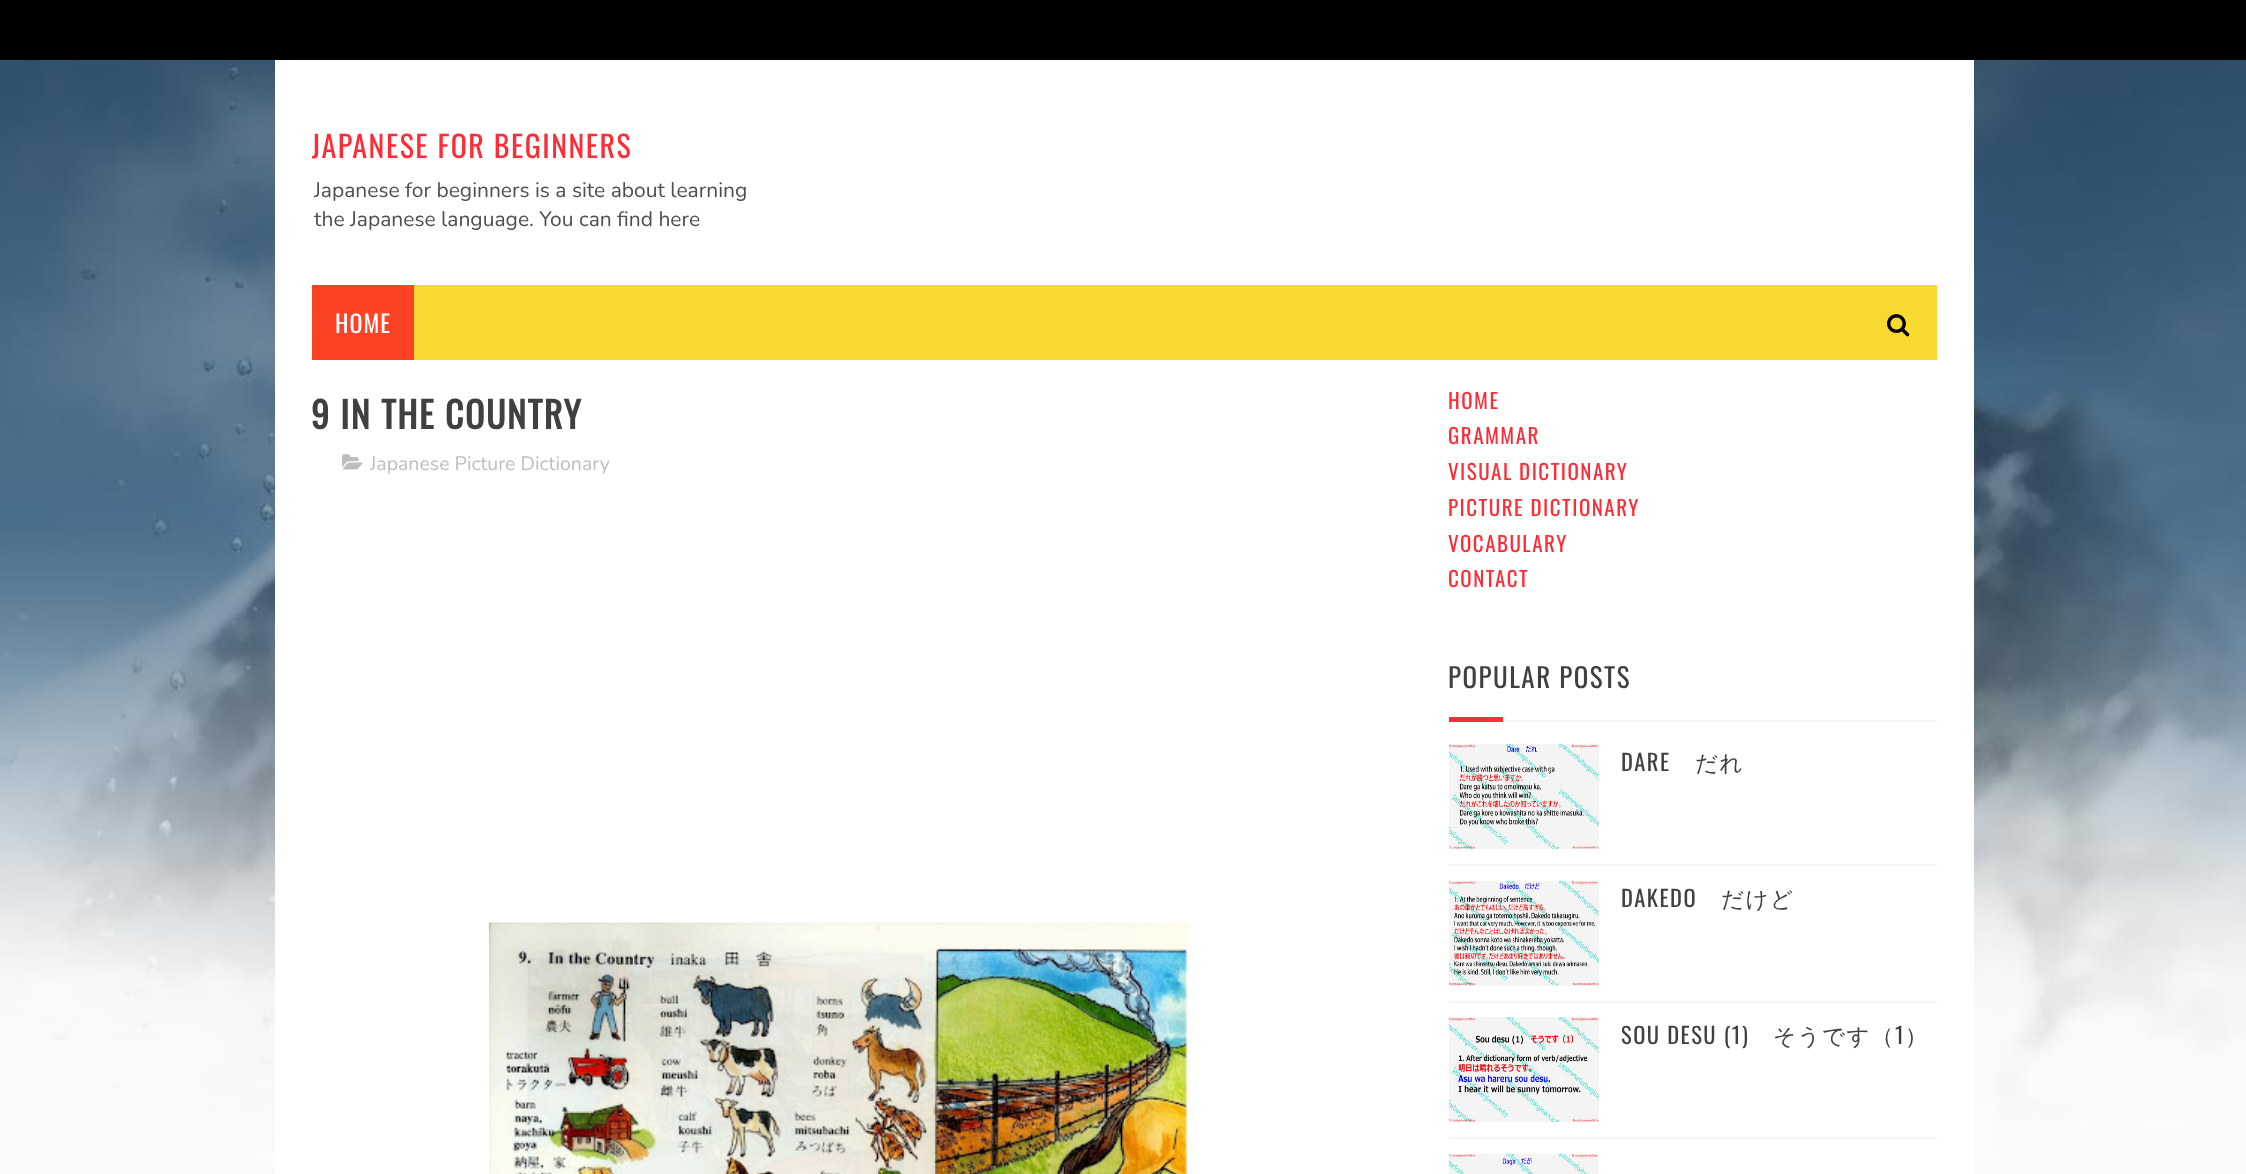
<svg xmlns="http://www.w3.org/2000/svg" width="2246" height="1174">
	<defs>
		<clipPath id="clip1"><rect x="312" y="105" width="1625" height="135" /></clipPath>
	</defs>
	<rect width="100%" height="100%" fill="#FFFFFF" />
	<image x="0" y="60" width="2246" height="1114" href="assets/img1.png" />
	<rect x="0" y="0" width="2246" height="60" fill="#000000" />
	<rect x="275" y="60" width="1699" height="1114" fill="#FFFFFF" />
	<g clip-path="url(#clip1)">
		<text x="311" y="158" font-family="Oswald" font-size="30" letter-spacing="1.5" fill="#FD2D37">JAPANESE FOR BEGINNERS</text>
	</g>
	<g font-family="Nunito" font-size="21" fill="#4F4F4F">
		<text x="314" y="197">Japanese for beginners is a site about learning</text>
		<text x="314" y="226">the Japanese language. You can find here</text>
	</g>
	<rect x="414" y="285" width="1523" height="75" fill="#F8D92F" />
	<rect x="312" y="285" width="102" height="75" fill="#FD4326" />
	<text x="335" y="333" font-family="Oswald" font-size="24" letter-spacing="1" fill="#FFFFFF">HOME</text>
	<image x="1887" y="314" width="23" height="23" href="assets/img2.png" />
	<text x="311" y="429" font-family="Oswald" font-size="36" font-weight="700" letter-spacing="1.5" fill="#404040">9 IN THE COUNTRY</text>
	<image x="342" y="454" width="21" height="16" href="assets/img3.png" />
	<text x="370" y="470" font-family="Nunito" font-size="19.5" fill="#BDBDBD">Japanese Picture Dictionary</text>
	<image x="489" y="922" width="707" height="252" href="assets/img4.png" />
	<g font-family="Oswald" font-size="21" letter-spacing="1.5" fill="#FD2D37">
		<text x="1448" y="409">HOME</text>
		<text x="1448" y="444">GRAMMAR</text>
		<text x="1448" y="480">VISUAL DICTIONARY</text>
		<text x="1448" y="516">PICTURE DICTIONARY</text>
		<text x="1448" y="552">VOCABULARY</text>
		<text x="1448" y="587">CONTACT</text>
	</g>
	<rect x="1503" y="720" width="434" height="2" fill="#F5F5F5" />
	<text x="1448" y="688" font-family="Oswald" font-size="27" letter-spacing="1.5" fill="#404040">POPULAR POSTS</text>
	<rect x="1449" y="717" width="54" height="5" fill="#FD2D37" />
	<image x="1449" y="744" width="150" height="105" href="assets/img5.png" />
	<text x="1621" y="771" font-family="Oswald" font-size="22.5" letter-spacing="1.5" fill="#404040">DARE</text>
	<text x="1695" y="771" font-family="WenQuanYi Zen Hei" font-size="22.5" font-weight="500" letter-spacing="1.5" fill="#404040">だれ</text>
	<rect x="1449" y="864" width="488" height="2" fill="#F5F5F5" />
	<image x="1449" y="880" width="150" height="106" href="assets/img6.png" />
	<rect x="1449" y="881" width="150" height="105" fill="#282328" fill-opacity="0.05" />
	<text x="1621" y="907" font-family="Oswald" font-size="22.5" letter-spacing="1.5" fill="#404040">DAKEDO</text>
	<text x="1721" y="907" font-family="WenQuanYi Zen Hei" font-size="22.5" font-weight="500" letter-spacing="1.5" fill="#404040">だけど</text>
	<rect x="1449" y="1001" width="488" height="2" fill="#F5F5F5" />
	<image x="1449" y="1017" width="150" height="105" href="assets/img7.png" />
	<text x="1621" y="1044" font-family="Oswald" font-size="22.5" letter-spacing="1.5" fill="#404040">SOU DESU (1)</text>
	<text x="1773" y="1044" font-family="WenQuanYi Zen Hei" font-size="22.5" font-weight="500" letter-spacing="1.5" fill="#404040">そうです（</text>
	<text x="1895" y="1044" font-family="Oswald" font-size="22.5" letter-spacing="1.5" fill="#404040">1</text>
	<text x="1905" y="1044" font-family="WenQuanYi Zen Hei" font-size="22.5" font-weight="500" letter-spacing="1.5" fill="#404040">）</text>
	<rect x="1449" y="1137" width="488" height="2" fill="#F5F5F5" />
	<image x="1449" y="1153" width="149" height="21" href="assets/img8.png" />
</svg>
